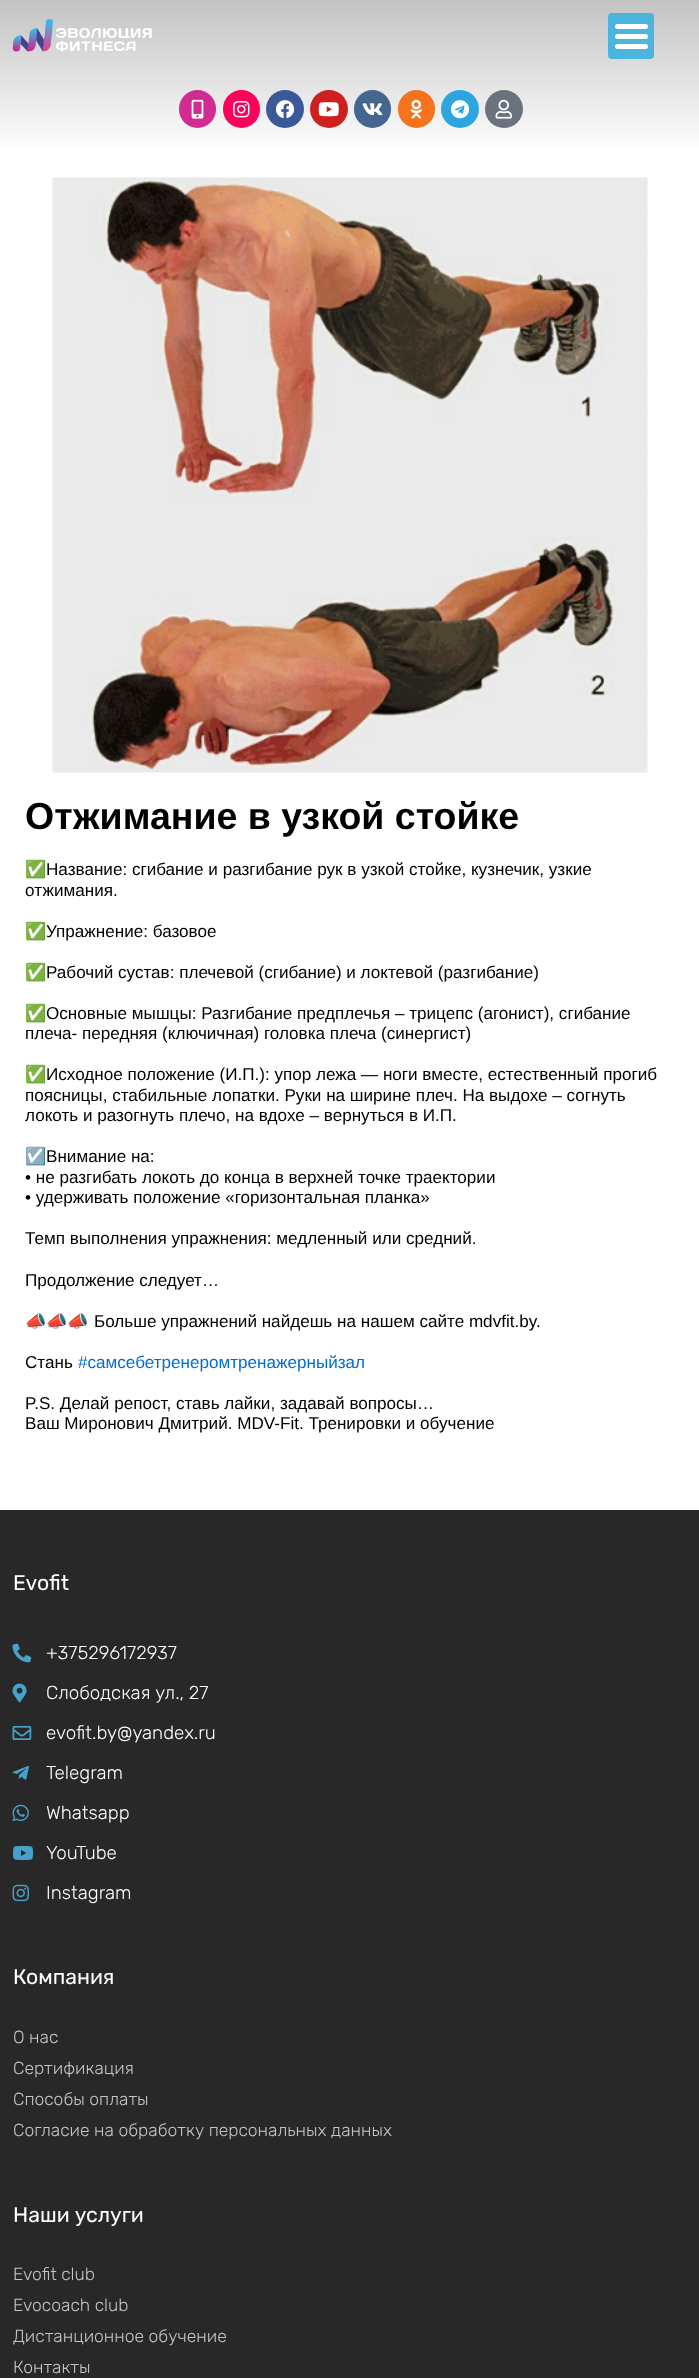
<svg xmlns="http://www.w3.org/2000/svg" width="699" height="2378">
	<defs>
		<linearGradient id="g1" gradientUnits="userSpaceOnUse" x1="350" y1="0" x2="350" y2="153"><stop offset="0" stop-color="#C4C3C3" /><stop offset="1" stop-color="#FFFFFF" /></linearGradient>
	</defs>
	<rect width="100%" height="100%" fill="#FFFFFF" />
	<rect x="0" y="0" width="699" height="147" fill="url(#g1)" />
	<image x="12" y="19" width="140" height="33" href="assets/img1.png" />
	<rect x="608" y="13" width="46" height="46" rx="4" fill="#4BB5DD" />
	<rect x="615" y="34" width="33" height="5" rx="2.5" fill="#FFFFFF" />
	<rect x="615" y="24" width="33" height="5" rx="2.5" fill="#FFFFFF" />
	<rect x="615" y="44" width="33" height="5" rx="2.5" fill="#FFFFFF" />
	<rect x="179" y="90" width="37" height="38" rx="18.5" fill="#D12C92" />
	<image x="191" y="99" width="13" height="20" href="assets/img2.png" />
	<rect x="223" y="90" width="37" height="38" rx="18.5" fill="#FF005A" />
	<image x="233" y="101" width="17" height="17" href="assets/img3.png" />
	<circle cx="285" cy="109" r="19" fill="#3B5998" />
	<image x="275" y="100" width="20" height="19" href="assets/img4.png" />
	<circle cx="329" cy="109" r="19" fill="#CD201F" />
	<image x="318" y="102" width="21" height="15" href="assets/img5.png" />
	<rect x="354" y="90" width="37" height="38" rx="18.5" fill="#45668E" />
	<image x="362" y="103" width="21" height="13" href="assets/img6.png" />
	<rect x="398" y="90" width="37" height="38" rx="18.5" fill="#F4731C" />
	<image x="410" y="99" width="12" height="20" href="assets/img7.png" />
	<circle cx="460" cy="109" r="19" fill="#2CA5E0" />
	<image x="450" y="100" width="20" height="19" href="assets/img8.png" />
	<circle cx="504" cy="109" r="19" fill="#69727D" />
	<image x="495" y="99" width="17" height="20" href="assets/img9.png" />
	<image x="52" y="177" width="596" height="596" href="assets/img10.png" />
	<text x="25" y="829" font-family="Liberation Sans" font-size="37.5" font-weight="700" fill="#000000">Отжимание в узкой стойке</text>
	<text x="25" y="875" font-family="Noto Color Emoji" font-size="17.1" fill="#000000">✅</text>
	<g font-family="Liberation Sans" font-size="17.1" fill="#000000">
		<text x="46" y="875">Название: сгибание и разгибание рук в узкой стойке, кузнечик, узкие</text>
		<text x="25" y="896">отжимания.</text>
	</g>
	<text x="25" y="937" font-family="Noto Color Emoji" font-size="17.1" fill="#000000">✅</text>
	<text x="46" y="937" font-family="Liberation Sans" font-size="17.1" fill="#000000">Упражнение: базовое</text>
	<text x="25" y="978" font-family="Noto Color Emoji" font-size="17.1" fill="#000000">✅</text>
	<text x="46" y="978" font-family="Liberation Sans" font-size="17.1" fill="#000000">Рабочий сустав: плечевой (сгибание) и локтевой (разгибание)</text>
	<text x="25" y="1019" font-family="Noto Color Emoji" font-size="17.1" fill="#000000">✅</text>
	<g font-family="Liberation Sans" font-size="17.1" fill="#000000">
		<text x="46" y="1019">Основные мышцы: Разгибание предплечья – трицепс (агонист), сгибание</text>
		<text x="25" y="1039">плеча- передняя (ключичная) головка плеча (синергист)</text>
	</g>
	<text x="25" y="1080" font-family="Noto Color Emoji" font-size="17.1" fill="#000000">✅</text>
	<g font-family="Liberation Sans" font-size="17.1" fill="#000000">
		<text x="46" y="1080">Исходное положение (И.П.): упор лежа — ноги вместе, естественный прогиб</text>
		<text x="25" y="1101">поясницы, стабильные лопатки. Руки на ширине плеч. На выдохе – согнуть</text>
		<text x="25" y="1121">локоть и разогнуть плечо, на вдохе – вернуться в И.П.</text>
	</g>
	<text x="25" y="1162" font-family="Noto Color Emoji" font-size="17.1" fill="#000000">☑️</text>
	<g font-family="Liberation Sans" font-size="17.1" fill="#000000">
		<text x="46" y="1162">Внимание на:</text>
		<text x="25" y="1183">• не разгибать локоть до конца в верхней точке траектории</text>
		<text x="25" y="1203">• удерживать положение «горизонтальная планка»</text>
		<text x="25" y="1244">Темп выполнения упражнения: медленный или средний.</text>
		<text x="25" y="1286">Продолжение следует…</text>
	</g>
	<text x="25" y="1327" font-family="Noto Color Emoji" font-size="17.1" fill="#000000">📣📣📣</text>
	<g font-family="Liberation Sans" font-size="17.1" fill="#000000">
		<text x="94" y="1327">Больше упражнений найдешь на нашем сайте mdvfit.by.</text>
		<text x="25" y="1368">Стань</text>
	</g>
	<text x="78" y="1368" font-family="Liberation Sans" font-size="17.1" fill="#006DD4">#самсебетренеромтренажерныйзал</text>
	<g font-family="Liberation Sans" font-size="17.1" fill="#000000">
		<text x="25" y="1409">P.S. Делай репост, ставь лайки, задавай вопросы…</text>
		<text x="25" y="1429">Ваш Миронович Дмитрий. MDV-Fit. Тренировки и обучение</text>
	</g>
	<rect x="0" y="1510" width="699" height="868" fill="#282828" />
	<text x="13" y="1590" font-family="Rubik" font-size="21.25" fill="#FFFFFF">Evofit</text>
	<image x="12" y="1643" width="20" height="20" href="assets/img11.png" />
	<text x="46" y="1659" font-family="Rubik" font-size="18.75" font-weight="300" fill="#FFFFFF">+375296172937</text>
	<image x="12" y="1683" width="15" height="20" href="assets/img12.png" />
	<text x="46" y="1699" font-family="Rubik" font-size="18.75" font-weight="300" fill="#FFFFFF">Слободская ул., 27</text>
	<image x="12" y="1725" width="20" height="15" href="assets/img13.png" />
	<text x="46" y="1739" font-family="Rubik" font-size="18.75" font-weight="300" fill="#FFFFFF">evofit.by@yandex.ru</text>
	<image x="12" y="1766" width="17" height="14" href="assets/img14.png" />
	<text x="46" y="1779" font-family="Rubik" font-size="18.75" font-weight="300" fill="#FFFFFF">Telegram</text>
	<image x="12" y="1804" width="17" height="18" href="assets/img15.png" />
	<text x="46" y="1819" font-family="Rubik" font-size="18.75" font-weight="300" fill="#FFFFFF">Whatsapp</text>
	<image x="13" y="1845" width="21" height="15" href="assets/img16.png" />
	<text x="46" y="1859" font-family="Rubik" font-size="18.75" font-weight="300" fill="#FFFFFF">YouTube</text>
	<image x="12" y="1884" width="17" height="18" href="assets/img17.png" />
	<text x="46" y="1899" font-family="Rubik" font-size="18.75" font-weight="300" fill="#FFFFFF">Instagram</text>
	<text x="13" y="1984" font-family="Rubik" font-size="21.25" fill="#FFFFFF">Компания</text>
	<g font-family="Rubik" font-size="17.5" font-weight="300" fill="#C5C5C5">
		<text x="13" y="2043">О нас</text>
		<text x="13" y="2074">Сертификация</text>
		<text x="13" y="2105">Способы оплаты</text>
		<text x="13" y="2136">Согласие на обработку персональных данных</text>
	</g>
	<text x="13" y="2222" font-family="Rubik" font-size="21.25" fill="#FFFFFF">Наши услуги</text>
	<g font-family="Rubik" font-size="17.5" font-weight="300" fill="#C5C5C5">
		<text x="13" y="2280">Evofit club</text>
		<text x="13" y="2311">Evocoach club</text>
		<text x="13" y="2342">Дистанционное обучение</text>
		<text x="13" y="2373">Контакты</text>
	</g>
</svg>
